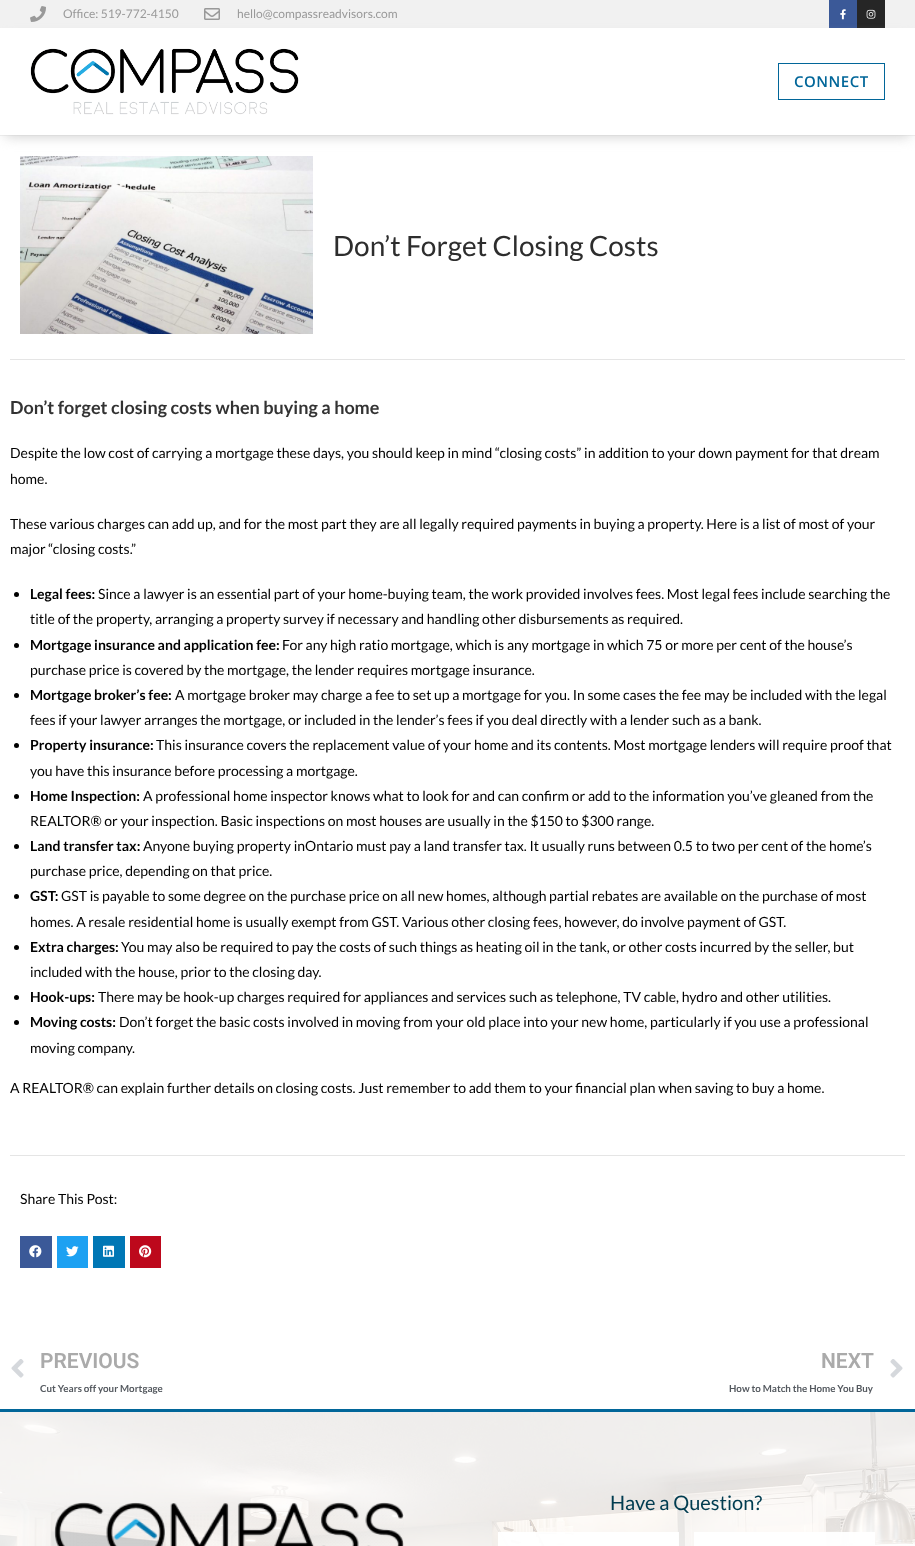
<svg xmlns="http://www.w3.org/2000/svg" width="915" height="1546">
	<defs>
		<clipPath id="clip1"><path d="M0 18H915V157H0ZM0 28H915V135H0Z" clip-rule="evenodd" /></clipPath>
	</defs>
	<rect width="100%" height="100%" fill="#FFFFFF" />
	<rect x="0" y="135" width="915" height="1" fill="#F1F1F1" />
	<rect x="0" y="0" width="915" height="28" fill="#F1F1F1" />
	<image x="30" y="6" width="16" height="16" href="assets/img1.png" />
	<text x="63" y="18" font-family="Lato" font-size="12" fill="#999999">Office: 519-772-4150</text>
	<image x="204" y="8" width="16" height="12" href="assets/img2.png" />
	<text x="237" y="18" font-family="Lato" font-size="12" fill="#999999">hello@compassreadvisors.com</text>
	<rect x="829" y="0" width="28" height="28" fill="#3B5998" />
	<image x="840" y="9" width="6" height="11" href="assets/img3.png" />
	<rect x="857" y="0" width="28" height="28" fill="#262626" />
	<image x="866" y="9" width="10" height="10" href="assets/img4.png" />
	<image x="20" y="156" width="293" height="178" href="assets/img6.png" />
	<g clip-path="url(#clip1)">
		<rect x="5" y="39" width="905" height="97" fill="#CCCCCC" filter="blur(6.5px)" />
	</g>
	<image x="30" y="48" width="269" height="67" href="assets/img5.png" />
	<rect x="778.5" y="63.5" width="106" height="36" fill="none" stroke="#016699" />
	<text x="794" y="87" font-family="Open Sans" font-size="15" font-weight="600" letter-spacing="0.5" fill="#016699">CONNECT</text>
	<text x="333" y="256" font-family="Lato" font-size="28" fill="#2D2D2D">Don’t Forget Closing Costs</text>
	<rect x="10" y="359" width="895" height="1" fill="#E5E5E5" />
	<text x="10" y="414" font-family="Lato" font-size="18" font-weight="700" fill="#333333">Don’t forget closing costs when buying a home</text>
	<g font-family="Lato" font-size="14" fill="#000000">
		<text x="10" y="458">Despite the low cost of carrying a mortgage these days, you should keep in mind “closing costs” in addition to your down payment for that dream</text>
		<text x="10" y="484">home.</text>
		<text x="10" y="529">These various charges can add up, and for the most part they are all legally required payments in buying a property. Here is a list of most of your</text>
		<text x="10" y="554">major “closing costs.”</text>
	</g>
	<circle cx="16.5" cy="594.5" r="2.5" fill="#000000" />
	<text x="30" y="599" font-family="Lato" font-size="14" font-weight="700" fill="#000000">Legal fees:</text>
	<g font-family="Lato" font-size="14" fill="#000000">
		<text x="98" y="599">Since a lawyer is an essential part of your home-buying team, the work provided involves fees. Most legal fees include searching the</text>
		<text x="30" y="624">title of the property, arranging a property survey if necessary and handling other disbursements as required.</text>
	</g>
	<circle cx="16.5" cy="645.5" r="2.5" fill="#000000" />
	<text x="30" y="650" font-family="Lato" font-size="14" font-weight="700" fill="#000000">Mortgage insurance and application fee:</text>
	<g font-family="Lato" font-size="14" fill="#000000">
		<text x="282" y="650">For any high ratio mortgage, which is any mortgage in which 75 or more per cent of the house’s</text>
		<text x="30" y="675">purchase price is covered by the mortgage, the lender requires mortgage insurance.</text>
	</g>
	<circle cx="16.5" cy="695.5" r="2.5" fill="#000000" />
	<text x="30" y="700" font-family="Lato" font-size="14" font-weight="700" fill="#000000">Mortgage broker’s fee:</text>
	<g font-family="Lato" font-size="14" fill="#000000">
		<text x="175" y="700">A mortgage broker may charge a fee to set up a mortgage for you. In some cases the fee may be included with the legal</text>
		<text x="30" y="725">fees if your lawyer arranges the mortgage, or included in the lender’s fees if you deal directly with a lender such as a bank.</text>
	</g>
	<circle cx="16.5" cy="745.5" r="2.5" fill="#000000" />
	<text x="30" y="750" font-family="Lato" font-size="14" font-weight="700" fill="#000000">Property insurance:</text>
	<g font-family="Lato" font-size="14" fill="#000000">
		<text x="156" y="750">This insurance covers the replacement value of your home and its contents. Most mortgage lenders will require proof that</text>
		<text x="30" y="776">you have this insurance before processing a mortgage.</text>
	</g>
	<circle cx="16.5" cy="796.5" r="2.5" fill="#000000" />
	<text x="30" y="801" font-family="Lato" font-size="14" font-weight="700" fill="#000000">Home Inspection:</text>
	<g font-family="Lato" font-size="14" fill="#000000">
		<text x="143" y="801">A professional home inspector knows what to look for and can confirm or add to the information you’ve gleaned from the</text>
		<text x="30" y="826">REALTOR® or your inspection. Basic inspections on most houses are usually in the $150 to $300 range.</text>
	</g>
	<circle cx="16.5" cy="846.5" r="2.5" fill="#000000" />
	<text x="30" y="851" font-family="Lato" font-size="14" font-weight="700" fill="#000000">Land transfer tax:</text>
	<g font-family="Lato" font-size="14" fill="#000000">
		<text x="143" y="851">Anyone buying property inOntario must pay a land transfer tax. It usually runs between 0.5 to two per cent of the home’s</text>
		<text x="30" y="876">purchase price, depending on that price.</text>
	</g>
	<circle cx="16.5" cy="896.5" r="2.5" fill="#000000" />
	<text x="30" y="901" font-family="Lato" font-size="14" font-weight="700" fill="#000000">GST:</text>
	<g font-family="Lato" font-size="14" fill="#000000">
		<text x="61" y="901">GST is payable to some degree on the purchase price on all new homes, although partial rebates are available on the purchase of most</text>
		<text x="30" y="927">homes. A resale residential home is usually exempt from GST. Various other closing fees, however, do involve payment of GST.</text>
	</g>
	<circle cx="16.5" cy="947.5" r="2.5" fill="#000000" />
	<text x="30" y="952" font-family="Lato" font-size="14" font-weight="700" fill="#000000">Extra charges:</text>
	<g font-family="Lato" font-size="14" fill="#000000">
		<text x="121" y="952">You may also be required to pay the costs of such things as heating oil in the tank, or other costs incurred by the seller, but</text>
		<text x="30" y="977">included with the house, prior to the closing day.</text>
	</g>
	<circle cx="16.5" cy="997.5" r="2.5" fill="#000000" />
	<text x="30" y="1002" font-family="Lato" font-size="14" font-weight="700" fill="#000000">Hook-ups:</text>
	<text x="98" y="1002" font-family="Lato" font-size="14" fill="#000000">There may be hook-up charges required for appliances and services such as telephone, TV cable, hydro and other utilities.</text>
	<circle cx="16.5" cy="1022.5" r="2.5" fill="#000000" />
	<text x="30" y="1027" font-family="Lato" font-size="14" font-weight="700" fill="#000000">Moving costs:</text>
	<g font-family="Lato" font-size="14" fill="#000000">
		<text x="119" y="1027">Don’t forget the basic costs involved in moving from your old place into your new home, particularly if you use a professional</text>
		<text x="30" y="1053">moving company.</text>
		<text x="10" y="1093">A REALTOR® can explain further details on closing costs. Just remember to add them to your financial plan when saving to buy a home.</text>
	</g>
	<rect x="10" y="1155" width="895" height="1" fill="#E5E5E5" />
	<text x="20" y="1204" font-family="Lato" font-size="14" fill="#000000">Share This Post:</text>
	<rect x="20" y="1236" width="32" height="32" fill="#3B5998" />
	<image x="29" y="1245" width="13" height="13" href="assets/img7.png" />
	<rect x="57" y="1236" width="31" height="32" fill="#1DA1F2" />
	<image x="66" y="1246" width="13" height="11" href="assets/img8.png" />
	<rect x="93" y="1236" width="32" height="32" fill="#0077B5" />
	<image x="103" y="1245" width="12" height="12" href="assets/img9.png" />
	<rect x="130" y="1236" width="31" height="32" fill="#BD081C" />
	<image x="139" y="1245" width="13" height="13" href="assets/img10.png" />
	<image x="11" y="1359" width="13" height="19" href="assets/img11.png" />
	<text x="40" y="1368" font-family="Roboto" font-size="21" font-weight="600" fill="#AAAAAA">PREVIOUS</text>
	<text x="40" y="1392" font-family="Lato" font-size="9.75" font-weight="700" fill="#54595F">Cut Years off your Mortgage</text>
	<text x="821" y="1368" font-family="Roboto" font-size="21" font-weight="600" fill="#AAAAAA">NEXT</text>
	<text x="729" y="1392" font-family="Lato" font-size="9.75" font-weight="700" fill="#54595F">How to Match the Home You Buy</text>
	<image x="890" y="1359" width="13" height="19" href="assets/img12.png" />
	<rect x="0" y="1409" width="915" height="3" fill="#016699" />
	<image x="0" y="1412" width="915" height="134" href="assets/img13.png" />
	<image x="54" y="1502" width="350" height="44" href="assets/img14.png" />
	<text x="610" y="1510" font-family="Lato" font-size="20" fill="#003C50">Have a Question?</text>
	<rect x="498" y="1532" width="181" height="14" fill="#FFFFFF" fill-opacity="0.95" />
	<rect x="694" y="1532" width="181" height="14" fill="#FFFFFF" fill-opacity="0.95" />
</svg>
